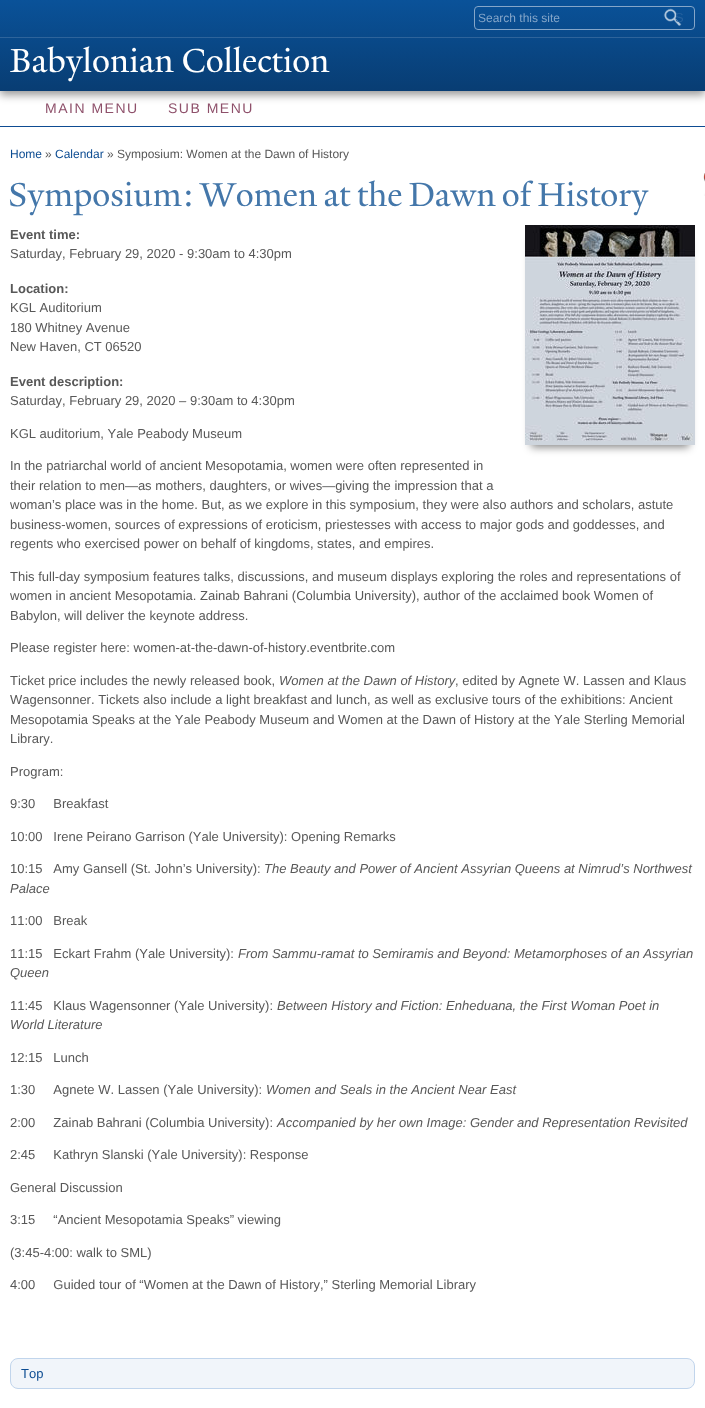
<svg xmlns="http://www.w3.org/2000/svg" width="705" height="1408">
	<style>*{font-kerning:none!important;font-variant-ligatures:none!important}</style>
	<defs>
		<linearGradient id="g1" gradientUnits="userSpaceOnUse" x1="353" y1="0" x2="353" y2="91"><stop offset="0" stop-color="#0A5299" /><stop offset="1" stop-color="#083D73" /></linearGradient>
	</defs>
	<rect width="100%" height="100%" fill="#FFFFFF" />
	<rect x="0" y="4" width="705" height="91" fill="#000000" fill-opacity="0.4" filter="blur(4px)" />
	<rect x="0" y="0" width="705" height="91" fill="url(#g1)" />
	<rect x="0" y="37" width="705" height="1" fill="#2E649B" />
	<rect x="474.5" y="6.5" width="220" height="23" rx="3.5" fill="none" stroke="#85A6C9" />
	<text x="478" y="22" font-family="Liberation Sans" font-size="12" fill="#85A6C9">Search this site</text>
	<image x="663" y="8" width="19" height="18" href="assets/img1.png" />
	<text x="675" y="22" font-family="Liberation Sans" font-size="13" fill="#25619E">S</text>
	<text x="10" y="72" font-family="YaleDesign" font-size="36" fill="#FFFFFF">Babylonian Collection</text>
	<rect x="0" y="126" width="705" height="1" fill="#0E4C92" />
	<g font-family="Liberation Sans" font-size="14" letter-spacing="1.5" fill="#8E506A">
		<text x="45" y="113">MAIN MENU</text>
		<text x="168" y="113">SUB MENU</text>
	</g>
	<text x="10" y="158" font-family="Liberation Sans" font-size="12" fill="#0C4C92">Home</text>
	<text x="45" y="158" font-family="Liberation Sans" font-size="12" fill="#585858">»</text>
	<text x="55" y="158" font-family="Liberation Sans" font-size="12" fill="#0C4C92">Calendar</text>
	<text x="107" y="158" font-family="Liberation Sans" font-size="12" fill="#585858">» Symposium: Women at the Dawn of History</text>
	<text x="8" y="206" word-spacing="-2" font-family="YaleDesign" font-size="36" fill="#4477AA">Symposium: Women at the Dawn of History</text>
	<text x="10" y="239" font-family="Liberation Sans" font-size="13" font-weight="700" fill="#585858">Event time:</text>
	<text x="10" y="258" font-family="Liberation Sans" font-size="13" fill="#585858">Saturday, February 29, 2020 - 9:30am to 4:30pm</text>
	<rect x="531" y="239" width="158" height="208" fill="#000000" fill-opacity="0.5" filter="blur(4px)" />
	<image x="525" y="225" width="170" height="220" href="assets/img2.png" />
	<text x="10" y="293" font-family="Liberation Sans" font-size="13" font-weight="700" fill="#585858">Location:</text>
	<image x="703" y="173" width="2" height="23" href="assets/img3.png" />
	<g font-family="Liberation Sans" font-size="13" fill="#585858">
		<text x="10" y="312">KGL Auditorium</text>
		<text x="10" y="332">180 Whitney Avenue</text>
		<text x="10" y="351">New Haven, CT 06520</text>
	</g>
	<text x="10" y="386" font-family="Liberation Sans" font-size="13" font-weight="700" fill="#585858">Event description:</text>
	<g font-family="Liberation Sans" font-size="13" fill="#585858">
		<text x="10" y="405">Saturday, February 29, 2020 – 9:30am to 4:30pm</text>
		<text x="10" y="438">KGL auditorium, Yale Peabody Museum</text>
		<text x="10" y="470">In the patriarchal world of ancient Mesopotamia, women were often represented in</text>
		<text x="10" y="490">their relation to men—as mothers, daughters, or wives—giving the impression that a</text>
		<text x="10" y="509">woman’s place was in the home. But, as we explore in this symposium, they were also authors and scholars, astute</text>
		<text x="10" y="529">business-women, sources of expressions of eroticism, priestesses with access to major gods and goddesses, and</text>
		<text x="10" y="548">regents who exercised power on behalf of kingdoms, states, and empires.</text>
		<text x="10" y="581">This full-day symposium features talks, discussions, and museum displays exploring the roles and representations of</text>
		<text x="10" y="600">women in ancient Mesopotamia. Zainab Bahrani (Columbia University), author of the acclaimed book Women of</text>
		<text x="10" y="620">Babylon, will deliver the keynote address.</text>
		<text x="10" y="652">Please register here: women-at-the-dawn-of-history.eventbrite.com</text>
		<text x="10" y="685">Ticket price includes the newly released book,</text>
	</g>
	<text x="279" y="685" font-family="Liberation Sans" font-size="13" font-style="italic" fill="#585858">Women at the Dawn of History</text>
	<g font-family="Liberation Sans" font-size="13" fill="#585858">
		<text x="455" y="685">, edited by Agnete W. Lassen and Klaus</text>
		<text x="10" y="704">Wagensonner. Tickets also include a light breakfast and lunch, as well as exclusive tours of the exhibitions: Ancient</text>
		<text x="10" y="724">Mesopotamia Speaks at the Yale Peabody Museum and Women at the Dawn of History at the Yale Sterling Memorial</text>
		<text x="10" y="743">Library.</text>
		<text x="10" y="776">Program:</text>
		<text x="10" y="808" xml:space="preserve">9:30     Breakfast</text>
		<text x="10" y="841" xml:space="preserve">10:00   Irene Peirano Garrison (Yale University): Opening Remarks</text>
		<text x="10" y="873" xml:space="preserve">10:15   Amy Gansell (St. John’s University):</text>
	</g>
	<g font-family="Liberation Sans" font-size="13" font-style="italic" fill="#585858">
		<text x="264" y="873">The Beauty and Power of Ancient Assyrian Queens at Nimrud’s Northwest</text>
		<text x="10" y="893">Palace</text>
	</g>
	<g font-family="Liberation Sans" font-size="13" fill="#585858">
		<text x="10" y="925" xml:space="preserve">11:00   Break</text>
		<text x="10" y="958" xml:space="preserve">11:15   Eckart Frahm (Yale University):</text>
	</g>
	<g font-family="Liberation Sans" font-size="13" font-style="italic" fill="#585858">
		<text x="238" y="958">From Sammu-ramat to Semiramis and Beyond: Metamorphoses of an Assyrian</text>
		<text x="10" y="977">Queen</text>
	</g>
	<text x="10" y="1010" font-family="Liberation Sans" font-size="13" fill="#585858" xml:space="preserve">11:45   Klaus Wagensonner (Yale University):</text>
	<g font-family="Liberation Sans" font-size="13" font-style="italic" fill="#585858">
		<text x="277" y="1010">Between History and Fiction: Enheduana, the First Woman Poet in</text>
		<text x="10" y="1029">World Literature</text>
	</g>
	<g font-family="Liberation Sans" font-size="13" fill="#585858">
		<text x="10" y="1062" xml:space="preserve">12:15   Lunch</text>
		<text x="10" y="1094" xml:space="preserve">1:30     Agnete W. Lassen (Yale University):</text>
	</g>
	<text x="266" y="1094" font-family="Liberation Sans" font-size="13" font-style="italic" fill="#585858">Women and Seals in the Ancient Near East</text>
	<text x="10" y="1127" font-family="Liberation Sans" font-size="13" fill="#585858" xml:space="preserve">2:00     Zainab Bahrani (Columbia University):</text>
	<text x="277" y="1127" font-family="Liberation Sans" font-size="13" font-style="italic" fill="#585858">Accompanied by her own Image: Gender and Representation Revisited</text>
	<g font-family="Liberation Sans" font-size="13" fill="#585858">
		<text x="10" y="1159" xml:space="preserve">2:45     Kathryn Slanski (Yale University): Response</text>
		<text x="10" y="1192">General Discussion</text>
		<text x="10" y="1224" xml:space="preserve">3:15     “Ancient Mesopotamia Speaks” viewing</text>
		<text x="10" y="1257">(3:45-4:00: walk to SML)</text>
		<text x="10" y="1289" xml:space="preserve">4:00     Guided tour of “Women at the Dawn of History,” Sterling Memorial Library</text>
	</g>
	<rect x="10.5" y="1358.5" width="684" height="30" rx="7.5" fill="#F1F5FA" stroke="#C1D5EC" />
	<text x="21" y="1378" font-family="Liberation Sans" font-size="13" fill="#0C4C92">Top</text>
</svg>
